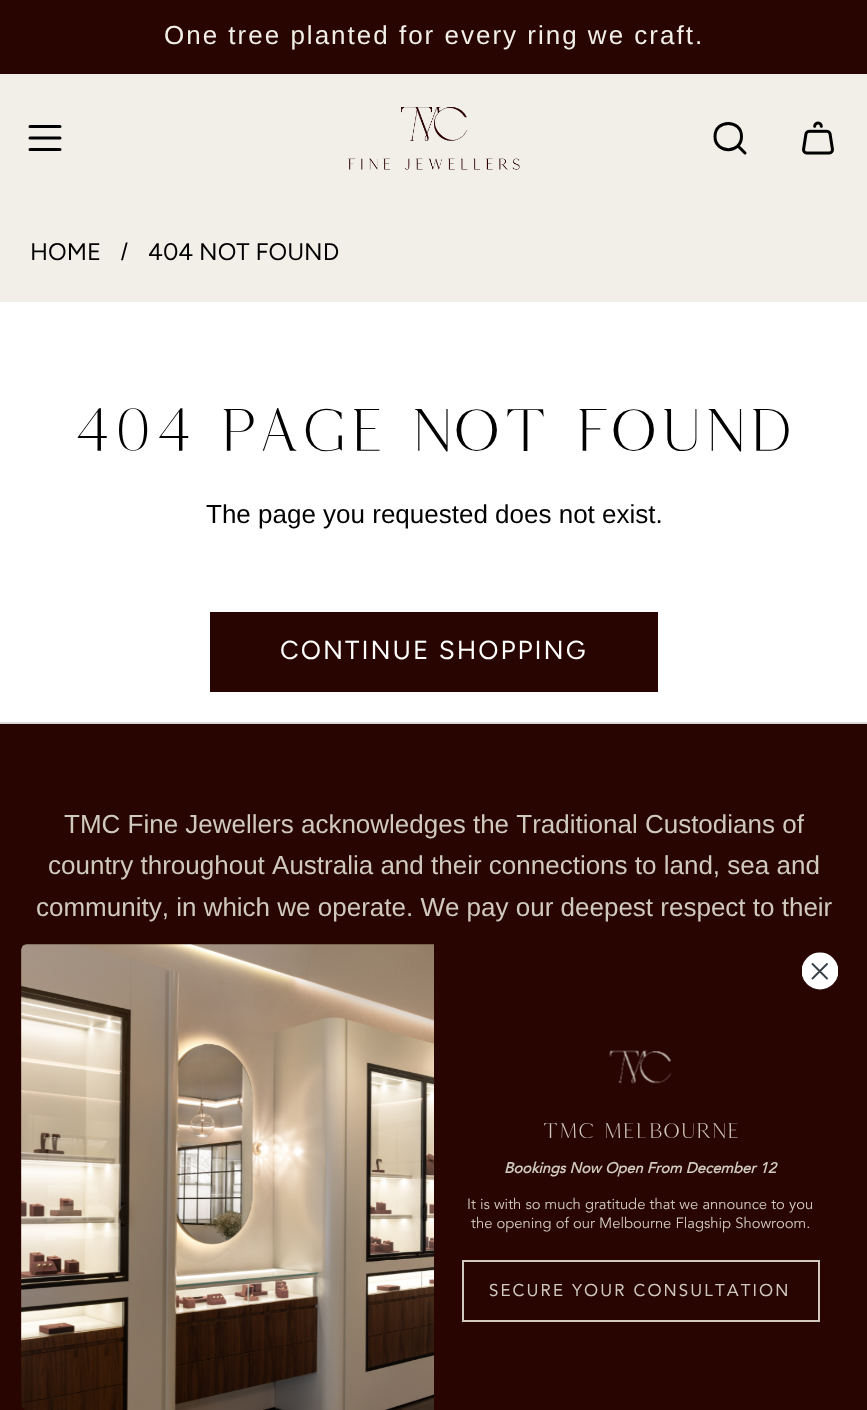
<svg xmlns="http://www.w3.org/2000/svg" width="867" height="1410">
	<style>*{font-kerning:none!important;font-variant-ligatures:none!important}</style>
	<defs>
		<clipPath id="clip1"><rect x="802" y="952" width="36" height="38" /></clipPath>
	</defs>
	<rect width="100%" height="100%" fill="#FFFFFF" />
	<rect x="0" y="0" width="867" height="74" fill="#280501" />
	<text x="164" y="44" font-family="Liberation Sans" font-size="26" letter-spacing="2" fill="#F2EFE9">One tree planted for every ring we craft.</text>
	<rect x="0" y="74" width="867" height="228" fill="#F2EFE9" />
	<path d="M30 126.5H60M30 138H60M30 149.5H60" fill="none" stroke="#000000" stroke-width="3" stroke-linecap="round" stroke-linejoin="round" />
	<image x="348" y="107" width="172" height="63" href="assets/img1.png" />
	<path d="M738.5 146.5L745 153M715 136.5C715 154 741.5 154 741.5 136.5C741.5 119 715 119 715 136.5Z" fill="none" stroke="#000000" stroke-width="3" stroke-linecap="round" stroke-linejoin="round" />
	<image x="802" y="121" width="32" height="34" href="assets/img2.png" />
	<text x="30" y="260" font-family="Figtree" font-size="24" fill="#000000">HOME</text>
	<text x="121" y="260" font-family="Liberation Sans" font-size="24" fill="#000000">/</text>
	<text x="148" y="260" font-family="Figtree" font-size="24" fill="#000000">404 NOT FOUND</text>
	<text x="72" y="451" font-family="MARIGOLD" font-size="60" letter-spacing="0.6" fill="#000000">404 Page not found</text>
	<text x="206" y="523" font-family="Liberation Sans" font-size="26" fill="#000000">The page you requested does not exist.</text>
	<rect x="210" y="612" width="448" height="80" fill="#280501" />
	<text x="280" y="659" font-family="Figtree" font-size="26" letter-spacing="2" fill="#FFFFFF">CONTINUE SHOPPING</text>
	<rect x="0" y="724" width="867" height="686" fill="#280501" />
	<rect x="0" y="722" width="867" height="2" fill="#D9D9D9" />
	<g font-family="Liberation Sans" font-size="26" fill="#D0CABE">
		<text x="64" y="833">TMC Fine Jewellers acknowledges the Traditional Custodians of</text>
		<text x="48" y="874">country throughout Australia and their connections to land, sea and</text>
		<text x="36" y="916">community, in which we operate. We pay our deepest respect to their</text>
	</g>
	<circle cx="820" cy="971" r="17.5" fill="#FFFFFF" />
	<g clip-path="url(#clip1)">
		<circle cx="820" cy="971" r="17.5" fill="none" stroke="#FFFFFF" stroke-width="1.9" />
	</g>
	<path d="M812.5 964L827 978.5M812.5 978.5L827 964Z" fill="none" stroke="#373F47" stroke-width="1.9" stroke-linecap="round" stroke-linejoin="round" />
	<image x="21" y="944" width="413" height="466" href="assets/img3.png" />
	<image x="609" y="1050" width="63" height="34" href="assets/img4.png" />
	<text x="542" y="1138" font-family="MARIGOLD" font-size="21.25" fill="#D0CABE">TMC MELBOURNE</text>
	<text x="504" y="1173" font-family="Avenir" font-size="14.8" font-weight="700" font-style="italic" fill="#D0CABE">Bookings Now Open From December 12</text>
	<g font-family="Avenir" font-size="14.8" fill="#D0CABE">
		<text x="467" y="1209">It is with so much gratitude that we announce to you</text>
		<text x="471" y="1228">the opening of our Melbourne Flagship Showroom.</text>
	</g>
	<rect x="463" y="1261" width="356" height="60" fill="none" stroke="#D0C9BE" stroke-width="2" />
	<text x="489" y="1296" font-family="'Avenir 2'" font-size="16.9" letter-spacing="2.1" fill="#D0CABE">SECURE YOUR CONSULTATION</text>
</svg>
